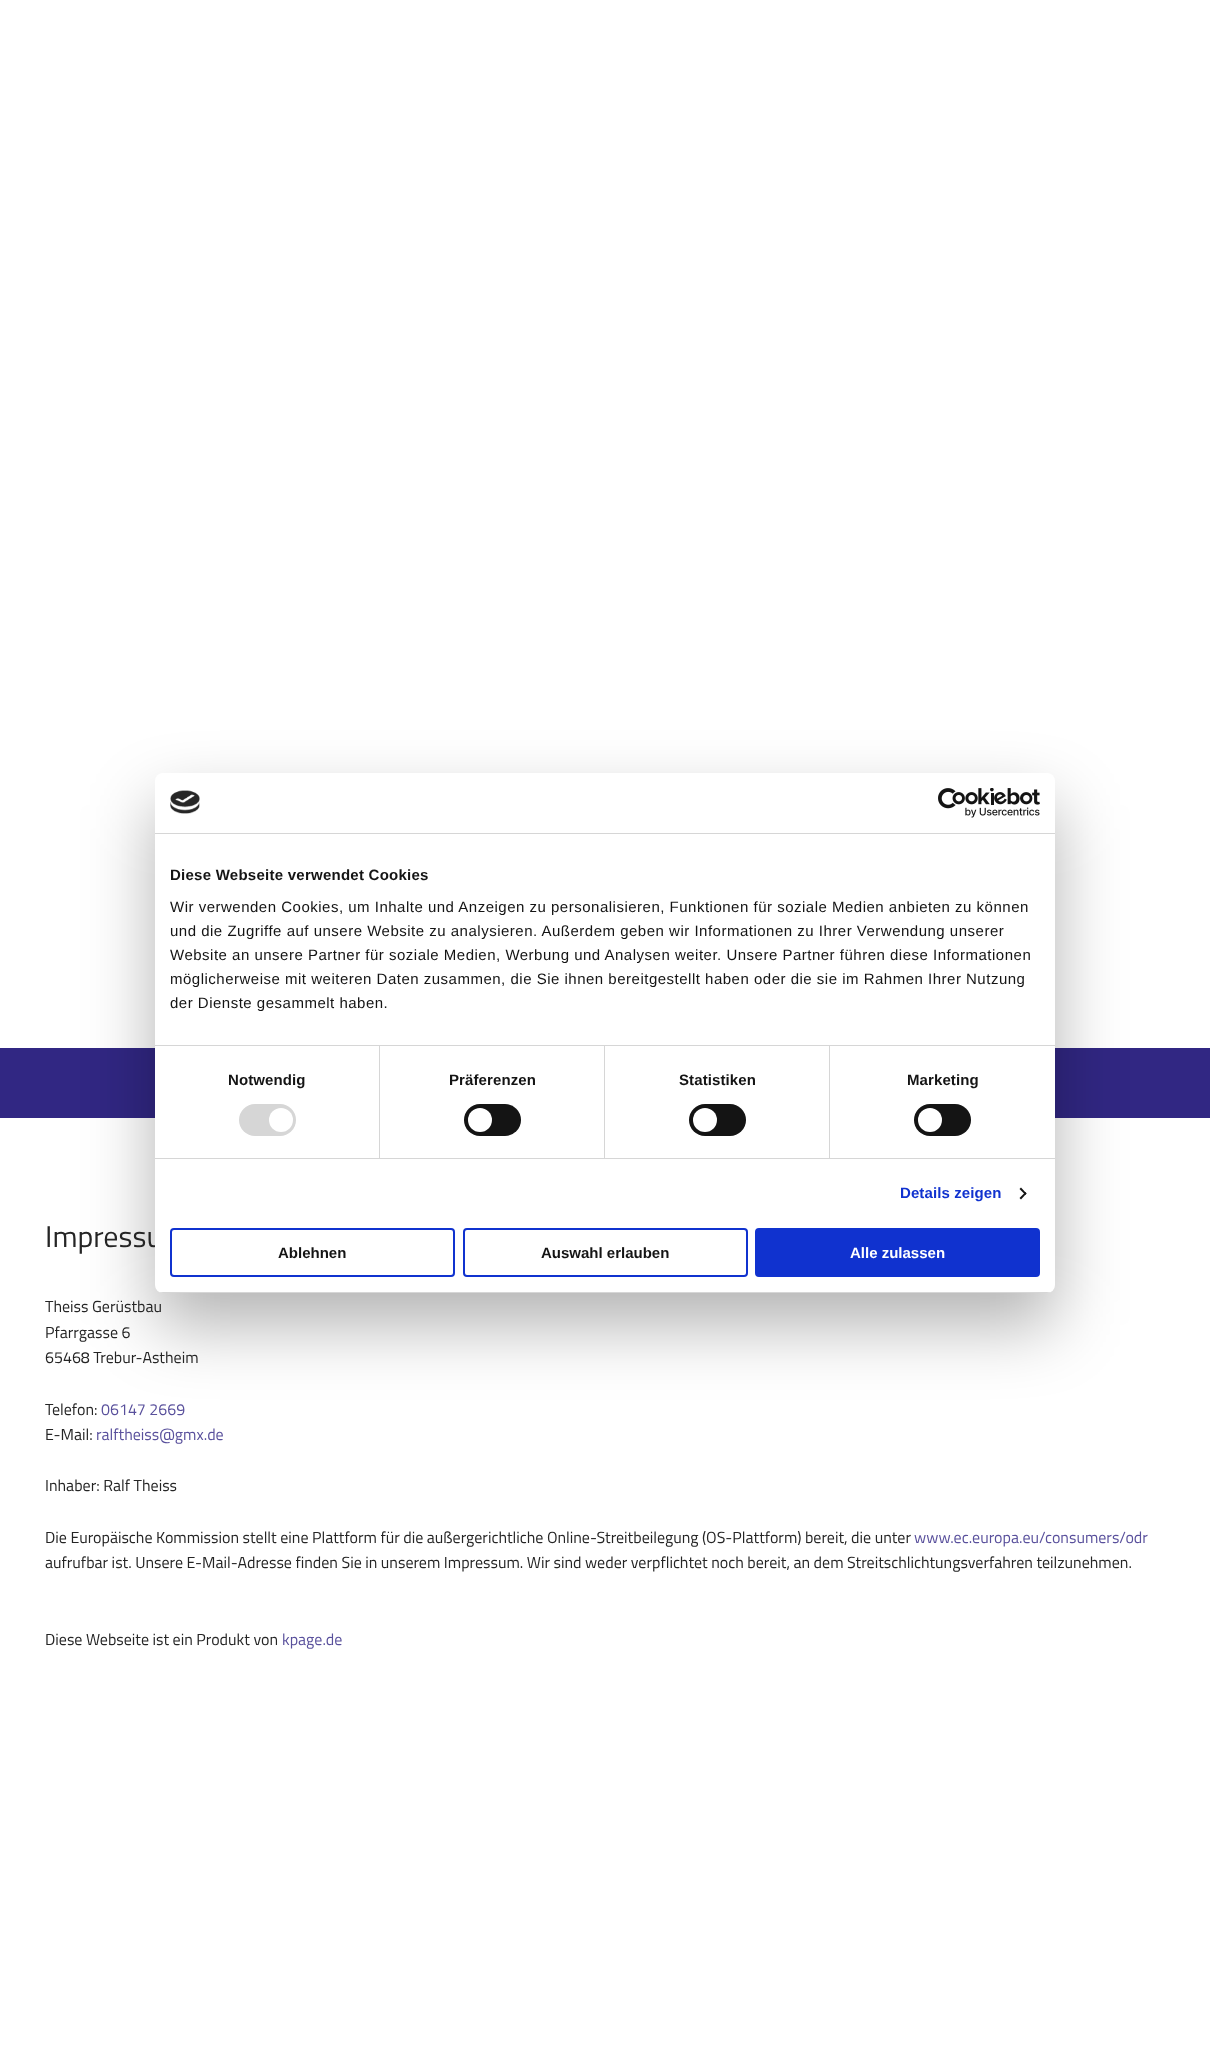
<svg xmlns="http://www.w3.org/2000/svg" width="1210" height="2065">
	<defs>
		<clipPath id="clip1"><rect x="155" y="773" width="900" height="520" rx="8" /></clipPath>
	</defs>
	<rect width="100%" height="100%" fill="#FFFFFF" />
	<rect x="0" y="1048" width="1210" height="70" fill="#312783" />
	<rect x="155" y="805" width="900" height="520" rx="8" fill="#000000" fill-opacity="0.3" filter="blur(34px)" />
	<text x="45" y="1247" font-family="Titillium Web" font-size="30" fill="#252525">Impressu</text>
	<rect x="155" y="773" width="900" height="520" rx="8" fill="#FFFFFF" />
	<rect x="155" y="833" width="900" height="1" fill="#D6D6D6" />
	<image x="170" y="790" width="30" height="24" href="assets/img1.png" />
	<image x="938" y="788" width="102" height="30" href="assets/img2.png" />
	<rect x="155" y="1045" width="900" height="1" fill="#D6D6D6" />
	<text x="170" y="880" font-family="Liberation Sans" font-size="15" font-weight="700" letter-spacing="0.25" fill="#141414">Diese Webseite verwendet Cookies</text>
	<g font-family="Liberation Sans" font-size="15" letter-spacing="0.5" fill="#141414">
		<text x="170" y="912">Wir verwenden Cookies, um Inhalte und Anzeigen zu personalisieren, Funktionen für soziale Medien anbieten zu können</text>
		<text x="170" y="936">und die Zugriffe auf unsere Website zu analysieren. Außerdem geben wir Informationen zu Ihrer Verwendung unserer</text>
		<text x="170" y="960">Website an unsere Partner für soziale Medien, Werbung und Analysen weiter. Unsere Partner führen diese Informationen</text>
		<text x="170" y="984">möglicherweise mit weiteren Daten zusammen, die Sie ihnen bereitgestellt haben oder die sie im Rahmen Ihrer Nutzung</text>
		<text x="170" y="1008">der Dienste gesammelt haben.</text>
	</g>
	<rect x="155" y="1158" width="900" height="1" fill="#D6D6D6" />
	<rect x="379" y="1046" width="1" height="112" fill="#D6D6D6" />
	<text x="228" y="1085" font-family="Liberation Sans" font-size="15" font-weight="700" letter-spacing="0.1" fill="#141414">Notwendig</text>
	<rect x="239" y="1104" width="57" height="32" rx="16" fill="#D6D6D6" />
	<circle cx="281" cy="1120" r="12" fill="#FFFFFF" />
	<rect x="604" y="1046" width="1" height="112" fill="#D6D6D6" />
	<text x="449" y="1085" font-family="Liberation Sans" font-size="15" font-weight="700" letter-spacing="0.1" fill="#141414">Präferenzen</text>
	<rect x="464" y="1104" width="57" height="32" rx="16" fill="#141414" />
	<circle cx="480" cy="1120" r="12" fill="#FFFFFF" />
	<rect x="829" y="1046" width="1" height="112" fill="#D6D6D6" />
	<text x="679" y="1085" font-family="Liberation Sans" font-size="15" font-weight="700" letter-spacing="0.1" fill="#141414">Statistiken</text>
	<rect x="689" y="1104" width="57" height="32" rx="16" fill="#141414" />
	<circle cx="705" cy="1120" r="12" fill="#FFFFFF" />
	<text x="907" y="1085" font-family="Liberation Sans" font-size="15" font-weight="700" letter-spacing="0.1" fill="#141414">Marketing</text>
	<rect x="914" y="1104" width="57" height="32" rx="16" fill="#141414" />
	<circle cx="930" cy="1120" r="12" fill="#FFFFFF" />
	<text x="900" y="1198" font-family="Liberation Sans" font-size="15" font-weight="700" letter-spacing="0.1" fill="#1032CF">Details zeigen</text>
	<path d="M1021 1187.5L1026.5 1193.5L1025.5 1195L1019.5 1189Z" fill="#141414" />
	<path d="M1025.5 1192L1026.5 1193.5L1021 1199.5L1019.5 1198Z" fill="#141414" />
	<g clip-path="url(#clip1)">
		<rect x="155" y="1292" width="900" height="1" fill="#D6D6D6" />
	</g>
	<rect x="171" y="1229" width="283" height="47" rx="3" fill="none" stroke="#1032CF" stroke-width="2" />
	<text x="278" y="1258" font-family="Liberation Sans" font-size="15" font-weight="700" fill="#141414">Ablehnen</text>
	<rect x="464" y="1229" width="283" height="47" rx="3" fill="none" stroke="#1032CF" stroke-width="2" />
	<text x="541" y="1258" font-family="Liberation Sans" font-size="15" font-weight="700" fill="#141414">Auswahl erlauben</text>
	<rect x="756" y="1229" width="283" height="47" rx="3" fill="#1032CF" stroke="#1032CF" stroke-width="2" />
	<text x="850" y="1258" font-family="Liberation Sans" font-size="15" font-weight="700" fill="#FFFFFF">Alle zulassen</text>
	<g font-family="Titillium Web" font-size="16" fill="#252525">
		<text x="45" y="1312">Theiss Gerüstbau</text>
		<text x="45" y="1338">Pfarrgasse 6</text>
		<text x="45" y="1363">65468 Trebur-Astheim</text>
		<text x="45" y="1415">Telefon:</text>
	</g>
	<text x="101" y="1415" font-family="Titillium Web" font-size="16" fill="#59509C">06147 2669</text>
	<text x="45" y="1440" font-family="Titillium Web" font-size="16" fill="#252525">E-Mail:</text>
	<text x="96" y="1440" font-family="Titillium Web" font-size="16" fill="#59509C">ralftheiss@gmx.de</text>
	<g font-family="Titillium Web" font-size="16" fill="#252525">
		<text x="45" y="1491">Inhaber: Ralf Theiss</text>
		<text x="45" y="1543">Die Europäische Kommission stellt eine Plattform für die außergerichtliche Online-Streitbeilegung (OS-Plattform) bereit, die unter</text>
	</g>
	<text x="914" y="1543" font-family="Titillium Web" font-size="16" fill="#59509C">www.ec.europa.eu/consumers/odr</text>
	<g font-family="Titillium Web" font-size="16" fill="#252525">
		<text x="45" y="1568">aufrufbar ist. Unsere E-Mail-Adresse finden Sie in unserem Impressum. Wir sind weder verpflichtet noch bereit, an dem Streitschlichtungsverfahren teilzunehmen.</text>
		<text x="45" y="1645">Diese Webseite ist ein Produkt von</text>
	</g>
	<text x="282" y="1645" font-family="Titillium Web" font-size="16" fill="#59509C">kpage.de</text>
</svg>
